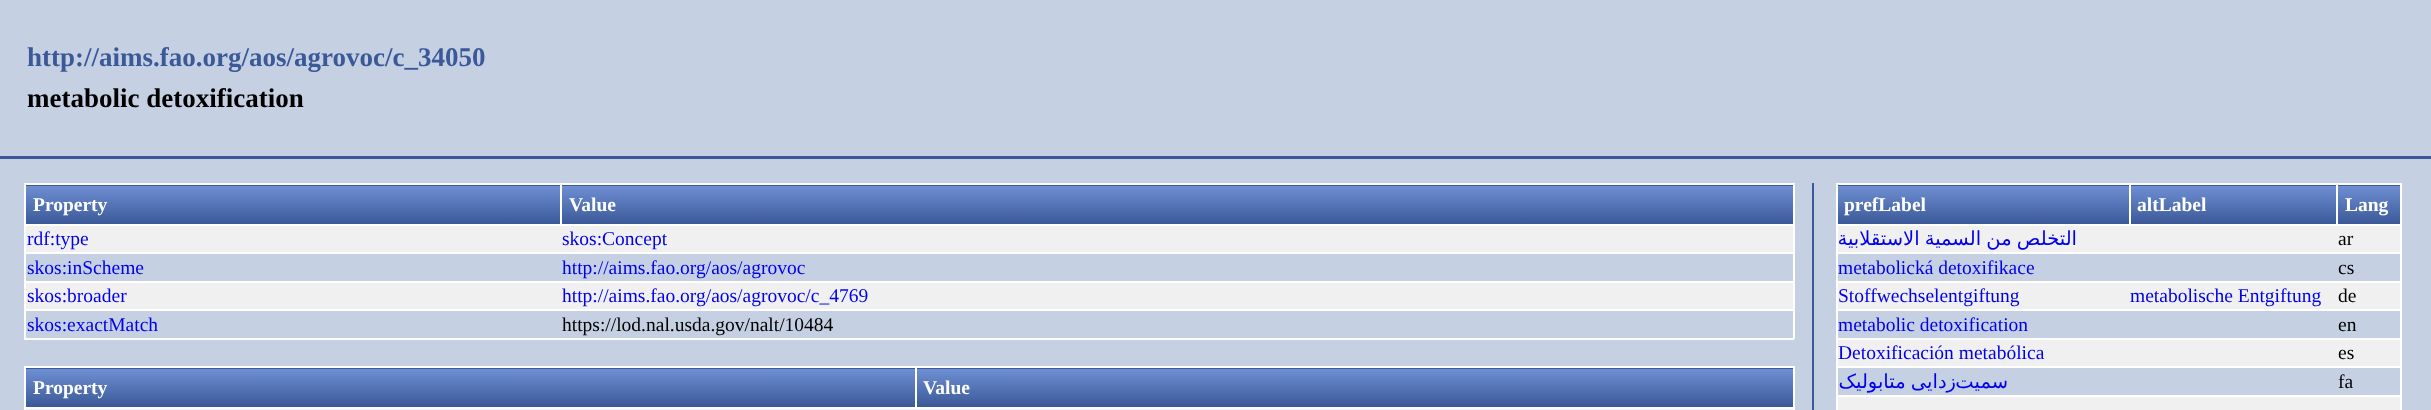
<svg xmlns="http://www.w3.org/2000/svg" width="2431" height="410">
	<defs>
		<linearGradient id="g1" gradientUnits="userSpaceOnUse" x1="293" y1="148" x2="293" y2="186"><stop offset="0" stop-color="#6E8FD3" /><stop offset="1" stop-color="#3B5998" /></linearGradient>
		<linearGradient id="g2" gradientUnits="userSpaceOnUse" x1="293" y1="186" x2="293" y2="224"><stop offset="0" stop-color="#6E8FD3" /><stop offset="1" stop-color="#3B5998" /></linearGradient>
		<linearGradient id="g3" gradientUnits="userSpaceOnUse" x1="1177" y1="148" x2="1177" y2="186"><stop offset="0" stop-color="#6E8FD3" /><stop offset="1" stop-color="#3B5998" /></linearGradient>
		<linearGradient id="g4" gradientUnits="userSpaceOnUse" x1="1177" y1="186" x2="1177" y2="224"><stop offset="0" stop-color="#6E8FD3" /><stop offset="1" stop-color="#3B5998" /></linearGradient>
		<linearGradient id="g5" gradientUnits="userSpaceOnUse" x1="470" y1="331" x2="470" y2="369"><stop offset="0" stop-color="#6E8FD3" /><stop offset="1" stop-color="#3B5998" /></linearGradient>
		<linearGradient id="g6" gradientUnits="userSpaceOnUse" x1="470" y1="369" x2="470" y2="407"><stop offset="0" stop-color="#6E8FD3" /><stop offset="1" stop-color="#3B5998" /></linearGradient>
		<linearGradient id="g7" gradientUnits="userSpaceOnUse" x1="1354" y1="331" x2="1354" y2="369"><stop offset="0" stop-color="#6E8FD3" /><stop offset="1" stop-color="#3B5998" /></linearGradient>
		<linearGradient id="g8" gradientUnits="userSpaceOnUse" x1="1354" y1="369" x2="1354" y2="407"><stop offset="0" stop-color="#6E8FD3" /><stop offset="1" stop-color="#3B5998" /></linearGradient>
		<linearGradient id="g9" gradientUnits="userSpaceOnUse" x1="2369" y1="149" x2="2369" y2="186"><stop offset="0" stop-color="#6E8FD3" /><stop offset="1" stop-color="#3B5998" /></linearGradient>
		<linearGradient id="g10" gradientUnits="userSpaceOnUse" x1="1982" y1="148" x2="1982" y2="186"><stop offset="0" stop-color="#6E8FD3" /><stop offset="1" stop-color="#3B5998" /></linearGradient>
		<linearGradient id="g11" gradientUnits="userSpaceOnUse" x1="1982" y1="186" x2="1982" y2="224"><stop offset="0" stop-color="#6E8FD3" /><stop offset="1" stop-color="#3B5998" /></linearGradient>
		<linearGradient id="g12" gradientUnits="userSpaceOnUse" x1="2233" y1="148" x2="2233" y2="186"><stop offset="0" stop-color="#6E8FD3" /><stop offset="1" stop-color="#3B5998" /></linearGradient>
		<linearGradient id="g13" gradientUnits="userSpaceOnUse" x1="2233" y1="186" x2="2233" y2="224"><stop offset="0" stop-color="#6E8FD3" /><stop offset="1" stop-color="#3B5998" /></linearGradient>
		<linearGradient id="g14" gradientUnits="userSpaceOnUse" x1="2369" y1="186" x2="2369" y2="224"><stop offset="0" stop-color="#6E8FD3" /><stop offset="1" stop-color="#3B5998" /></linearGradient>
	</defs>
	<rect width="100%" height="100%" fill="#C5D1E2" />
	<rect x="0" y="156" width="2431" height="3" fill="#3B5998" />
	<text x="27" y="66" font-family="Liberation Serif" font-size="27" font-weight="700" fill="#3B5998">http://aims.fao.org/aos/agrovoc/c_34050</text>
	<text x="27" y="107" font-family="Liberation Serif" font-size="27" font-weight="700" fill="#000000">metabolic detoxification</text>
	<rect x="1812" y="183" width="2" height="227" fill="#3B5998" />
	<rect x="24" y="183" width="1770" height="2" fill="#FFFFFF" />
	<rect x="1793" y="183" width="2" height="156" fill="#FFFFFF" />
	<rect x="24" y="338" width="1770" height="2" fill="#FFFFFF" />
	<rect x="24" y="183" width="2" height="156" fill="#FFFFFF" />
	<rect x="26" y="185" width="535" height="1" fill="url(#g1)" />
	<rect x="26" y="186" width="534" height="38" fill="url(#g2)" />
	<text x="33" y="211" font-family="Liberation Serif" font-size="19.5" font-weight="700" fill="#FFFFFF">Property</text>
	<rect x="561" y="185" width="1232" height="1" fill="url(#g3)" />
	<rect x="562" y="186" width="1231" height="38" fill="url(#g4)" />
	<rect x="24" y="224" width="1770" height="2" fill="#FFFFFF" />
	<rect x="560" y="183" width="2" height="42" fill="#FFFFFF" />
	<text x="569" y="211" font-family="Liberation Serif" font-size="19.5" font-weight="700" fill="#FFFFFF">Value</text>
	<rect x="26" y="226" width="1767" height="26" fill="#F0F0F0" />
	<g font-family="Liberation Serif" font-size="19.5" fill="#0000EE">
		<text x="27" y="245">rdf:type</text>
		<text x="562" y="245">skos:Concept</text>
	</g>
	<rect x="24" y="252" width="1770" height="2" fill="#FFFFFF" />
	<g font-family="Liberation Serif" font-size="19.5" fill="#0000EE">
		<text x="27" y="274">skos:inScheme</text>
		<text x="562" y="274">http://aims.fao.org/aos/agrovoc</text>
	</g>
	<rect x="26" y="283" width="1767" height="26" fill="#F0F0F0" />
	<rect x="24" y="281" width="1770" height="2" fill="#FFFFFF" />
	<g font-family="Liberation Serif" font-size="19.5" fill="#0000EE">
		<text x="27" y="302">skos:broader</text>
		<text x="562" y="302">http://aims.fao.org/aos/agrovoc/c_4769</text>
	</g>
	<rect x="24" y="309" width="1770" height="2" fill="#FFFFFF" />
	<text x="27" y="331" font-family="Liberation Serif" font-size="19.5" fill="#0000EE">skos:exactMatch</text>
	<text x="562" y="331" font-family="Liberation Serif" font-size="19.5" fill="#000000">https://lod.nal.usda.gov/nalt/10484</text>
	<rect x="24" y="366" width="1770" height="2" fill="#FFFFFF" />
	<rect x="1793" y="366" width="2" height="44" fill="#FFFFFF" />
	<rect x="24" y="366" width="2" height="44" fill="#FFFFFF" />
	<rect x="26" y="368" width="889" height="1" fill="url(#g5)" />
	<rect x="26" y="369" width="889" height="38" fill="url(#g6)" />
	<text x="33" y="394" font-family="Liberation Serif" font-size="19.5" font-weight="700" fill="#FFFFFF">Property</text>
	<rect x="915" y="368" width="878" height="1" fill="url(#g7)" />
	<rect x="917" y="369" width="876" height="38" fill="url(#g8)" />
	<rect x="24" y="407" width="1770" height="2" fill="#FFFFFF" />
	<rect x="915" y="366" width="2" height="42" fill="#FFFFFF" />
	<text x="923" y="394" font-family="Liberation Serif" font-size="19.5" font-weight="700" fill="#FFFFFF">Value</text>
	<rect x="26" y="409" width="1767" height="1" fill="#F0F0F0" />
	<rect x="1836" y="183" width="566" height="2" fill="#FFFFFF" />
	<rect x="2337" y="185" width="65" height="1" fill="url(#g9)" />
	<rect x="2400" y="183" width="2" height="227" fill="#FFFFFF" />
	<rect x="1836" y="185" width="293" height="1" fill="url(#g10)" />
	<rect x="1836" y="183" width="2" height="227" fill="#FFFFFF" />
	<rect x="1838" y="186" width="291" height="38" fill="url(#g11)" />
	<text x="1844" y="211" font-family="Liberation Serif" font-size="19.5" font-weight="700" fill="#FFFFFF">prefLabel</text>
	<rect x="2129" y="185" width="208" height="1" fill="url(#g12)" />
	<rect x="2131" y="186" width="205" height="38" fill="url(#g13)" />
	<rect x="1836" y="224" width="566" height="2" fill="#FFFFFF" />
	<rect x="2129" y="183" width="2" height="42" fill="#FFFFFF" />
	<text x="2137" y="211" font-family="Liberation Serif" font-size="19.5" font-weight="700" fill="#FFFFFF">altLabel</text>
	<rect x="2338" y="186" width="62" height="38" fill="url(#g14)" />
	<rect x="2336" y="183" width="2" height="42" fill="#FFFFFF" />
	<text x="2345" y="211" font-family="Liberation Serif" font-size="19.5" font-weight="700" fill="#FFFFFF">Lang</text>
	<rect x="1838" y="226" width="562" height="26" fill="#F0F0F0" />
	<text x="2077" y="245" word-spacing="-1" font-family="DejaVu Sans" font-size="19.5" direction="rtl" fill="#0000EE">التخلص من السمية الاستقلابية</text>
	<text x="2338" y="245" font-family="Liberation Serif" font-size="19.5" fill="#000000">ar</text>
	<rect x="1836" y="252" width="566" height="2" fill="#FFFFFF" />
	<text x="1838" y="274" font-family="Liberation Serif" font-size="19.5" fill="#0000EE">metabolická detoxifikace</text>
	<text x="2338" y="274" font-family="Liberation Serif" font-size="19.5" fill="#000000">cs</text>
	<rect x="1838" y="283" width="562" height="26" fill="#F0F0F0" />
	<rect x="1836" y="281" width="566" height="2" fill="#FFFFFF" />
	<g font-family="Liberation Serif" font-size="19.5" fill="#0000EE">
		<text x="1838" y="302">Stoffwechselentgiftung</text>
		<text x="2130" y="302">metabolische Entgiftung</text>
	</g>
	<text x="2338" y="302" font-family="Liberation Serif" font-size="19.5" fill="#000000">de</text>
	<rect x="1836" y="309" width="566" height="2" fill="#FFFFFF" />
	<text x="1838" y="331" font-family="Liberation Serif" font-size="19.5" fill="#0000EE">metabolic detoxification</text>
	<text x="2338" y="331" font-family="Liberation Serif" font-size="19.5" fill="#000000">en</text>
	<rect x="1838" y="340" width="562" height="26" fill="#F0F0F0" />
	<rect x="1836" y="338" width="566" height="2" fill="#FFFFFF" />
	<text x="1838" y="359" font-family="Liberation Serif" font-size="19.5" fill="#0000EE">Detoxificación metabólica</text>
	<text x="2338" y="359" font-family="Liberation Serif" font-size="19.5" fill="#000000">es</text>
	<rect x="1836" y="366" width="566" height="2" fill="#FFFFFF" />
	<g font-family="DejaVu Sans" font-size="19.5" direction="rtl" fill="#0000EE">
		<text x="1956" y="388" word-spacing="-1">زدایی متابولیک</text>
		<text x="2008" y="388">سمیت</text>
	</g>
	<text x="2338" y="388" font-family="Liberation Serif" font-size="19.5" fill="#000000">fa</text>
	<rect x="1838" y="397" width="562" height="13" fill="#F0F0F0" />
	<rect x="1836" y="395" width="566" height="2" fill="#FFFFFF" />
</svg>
